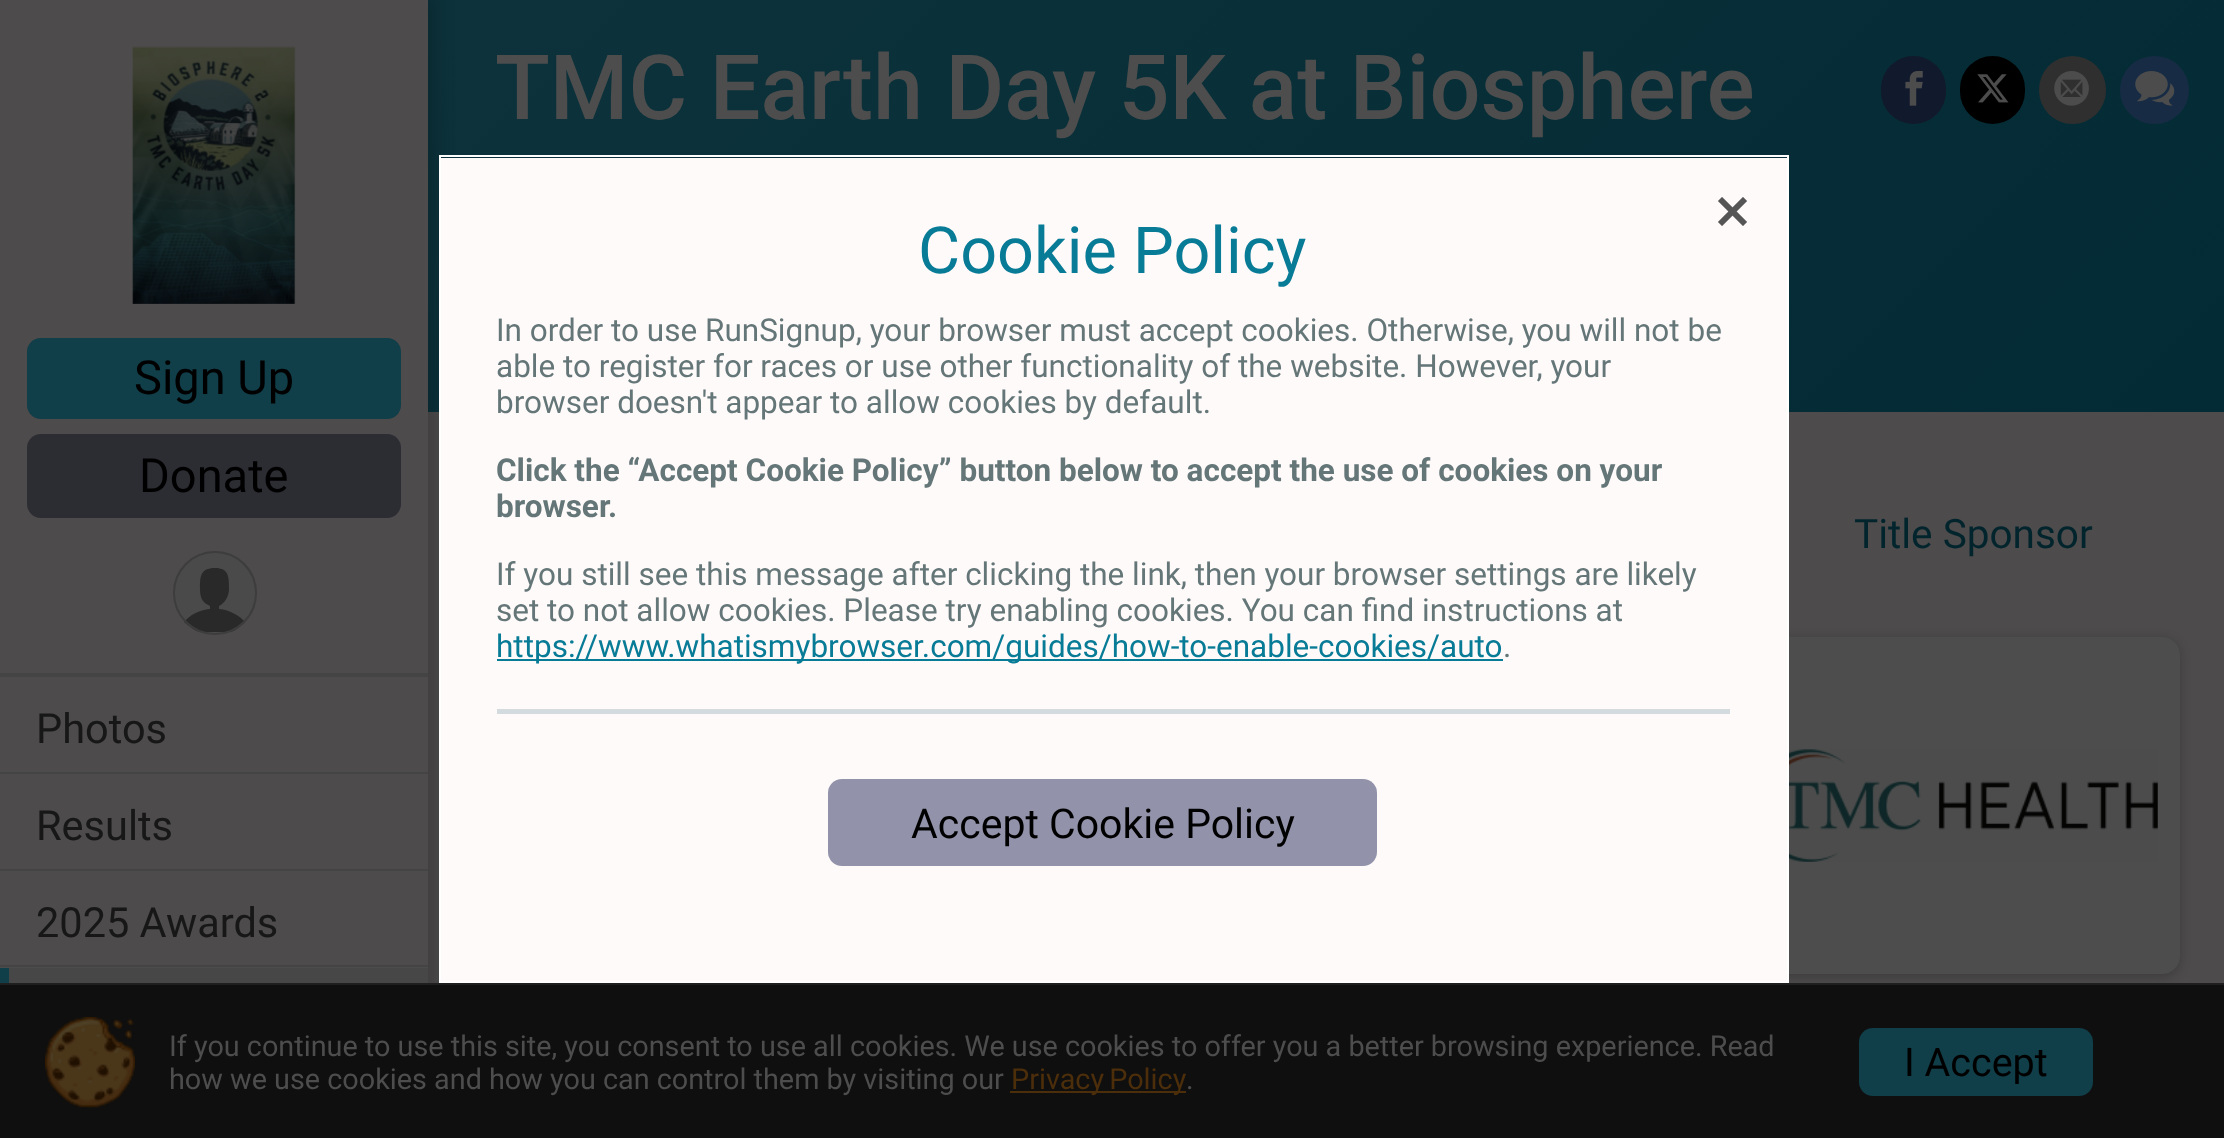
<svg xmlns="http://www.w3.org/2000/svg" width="2224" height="1138">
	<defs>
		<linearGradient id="g1" gradientUnits="userSpaceOnUse" x1="1879" y1="758" x2="774" y2="-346"><stop offset="0" stop-color="#032B35" /><stop offset="1" stop-color="#0D323B" /></linearGradient>
		<clipPath id="clip1"><rect x="173" y="551" width="84" height="84" rx="42" /></clipPath>
	</defs>
	<rect width="100%" height="100%" fill="#4D4B4B" />
	<rect x="428" y="0" width="1796" height="412" fill="url(#g1)" />
	<text x="495" y="119" font-family="Roboto" font-size="90" font-weight="500" fill="#4D4D4D">TMC Earth Day 5K at Biosphere</text>
	<rect x="1881" y="56" width="65" height="68" rx="32.5" fill="#11192D" />
	<image x="1905" y="71" width="18" height="35" href="assets/img1.png" />
	<rect x="1960" y="56" width="65" height="68" rx="32.5" fill="#000000" />
	<image x="1977" y="74" width="32" height="29" href="assets/img2.png" />
	<rect x="2039" y="56" width="67" height="68" rx="33.5" fill="#2F2F2F" />
	<image x="2054" y="71" width="35" height="35" href="assets/img3.png" />
	<rect x="2120" y="56" width="69" height="68" rx="34" fill="#172C44" />
	<image x="2135" y="71" width="40" height="35" href="assets/img4.png" />
	<rect x="-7" y="-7" width="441" height="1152" fill="#000000" fill-opacity="0.2" filter="blur(10px)" />
	<rect x="0" y="0" width="428" height="968" fill="#4D4B4B" />
	<image x="132" y="46" width="164" height="258" href="assets/img5.png" />
	<rect x="27" y="338" width="374" height="81" rx="14" fill="#103E49" />
	<text x="134" y="394" font-family="Roboto" font-size="47" fill="#000000">Sign Up</text>
	<rect x="27" y="434" width="374" height="84" rx="14" fill="#2C2C33" />
	<text x="139" y="492" font-family="Roboto" font-size="47" fill="#000000">Donate</text>
	<g clip-path="url(#clip1)">
		<rect x="176" y="554" width="78" height="78" fill="#4A4A4A" />
	</g>
	<path d="M219 609C230 610 240 616 245 622C241 626 236 630 231 632H199C194 630 189 626 184 622C190 615 199 610 210 609V606C204 603 200 600 200 589C200 577 200 568 215 568C229 568 229 577 229 589C229 596 225 603 219 606Z" fill="#292929" />
	<circle cx="215" cy="593" r="41" fill="none" stroke="#3D3D3D" stroke-width="2" />
	<rect x="0" y="673" width="428" height="4" fill="#444444" />
	<text x="36" y="743" font-family="Roboto" font-size="41.5" fill="#171717">Photos</text>
	<rect x="0" y="772" width="428" height="2" fill="#444444" />
	<text x="36" y="840" font-family="Roboto" font-size="41.5" fill="#171717">Results</text>
	<rect x="0" y="869" width="428" height="2" fill="#444444" />
	<text x="36" y="937" font-family="Roboto" font-size="41.5" fill="#171717">2025 Awards</text>
	<rect x="0" y="965" width="428" height="2" fill="#444444" />
	<rect x="9" y="968" width="419" height="15" fill="#474747" />
	<rect x="0" y="968" width="9" height="15" fill="#103E49" />
	<text x="1854" y="548" font-family="Roboto" font-size="40.5" fill="#02252D">Title Sponsor</text>
	<rect x="1730" y="639" width="450" height="338" rx="18" fill="#000000" fill-opacity="0.2" filter="blur(5.5px)" />
	<rect x="1730" y="637" width="450" height="337" rx="18" fill="#4D4D4D" />
	<image x="1789" y="749" width="369" height="113" href="assets/img6.png" />
	<rect x="440" y="156" width="1348" height="826" fill="none" stroke="#FFFFFF" stroke-width="2" />
	<rect x="441" y="158" width="1346" height="823" fill="#FFFAFA" />
	<image x="1718" y="197" width="29" height="29" href="assets/img7.png" />
	<text x="918" y="273" font-family="Roboto" font-size="64.75" fill="#087B96">Cookie Policy</text>
	<g font-family="Roboto" font-size="31.5" fill="#647677">
		<text x="496" y="341">In order to use RunSignup, your browser must accept cookies. Otherwise, you will not be</text>
		<text x="496" y="377">able to register for races or use other functionality of the website. However, your</text>
		<text x="496" y="413">browser doesn't appear to allow cookies by default.</text>
	</g>
	<g font-family="Roboto" font-size="31.5" font-weight="700" fill="#647677">
		<text x="496" y="481">Click the “Accept Cookie Policy” button below to accept the use of cookies on your</text>
		<text x="496" y="517">browser.</text>
	</g>
	<g font-family="Roboto" font-size="31.5" fill="#647677">
		<text x="496" y="585">If you still see this message after clicking the link, then your browser settings are likely</text>
		<text x="496" y="621">set to not allow cookies. Please try enabling cookies. You can find instructions at</text>
	</g>
	<rect x="497" y="659" width="1006" height="2" fill="#087B96" />
	<text x="496" y="657" font-family="Roboto" font-size="31.5" fill="#087B96">https://www.whatismybrowser.com/guides/how-to-enable-cookies/auto</text>
	<text x="1503" y="657" font-family="Roboto" font-size="31.5" fill="#647677">.</text>
	<rect x="497" y="709" width="1233" height="5" fill="#D3DBDF" />
	<rect x="828" y="779" width="549" height="87" rx="14" fill="#9293AA" />
	<text x="911" y="838" font-family="Roboto" font-size="41" fill="#000000">Accept Cookie Policy</text>
	<rect x="0" y="985" width="2224" height="153" fill="#0F0F0F" />
	<rect x="0" y="983" width="2224" height="2" fill="#1F1F1F" />
	<image x="45" y="1017" width="90" height="91" href="assets/img8.png" />
	<g font-family="Roboto" font-size="28.8" fill="#4D4D4D">
		<text x="169" y="1056">If you continue to use this site, you consent to use all cookies. We use cookies to offer you a better browsing experience. Read</text>
		<text x="169" y="1089">how we use cookies and how you can control them by visiting our</text>
	</g>
	<rect x="1010" y="1091" width="176" height="2" fill="#4C2E0B" />
	<text x="1011" y="1089" word-spacing="-2" font-family="Roboto" font-size="28.8" fill="#4C2E0B">Privacy Policy</text>
	<text x="1186" y="1089" font-family="Roboto" font-size="28.8" fill="#4D4D4D">.</text>
	<rect x="1859" y="1028" width="234" height="68" rx="14" fill="#103E49" />
	<text x="1904" y="1076" font-family="Roboto" font-size="39.5" fill="#000000">I Accept</text>
</svg>
